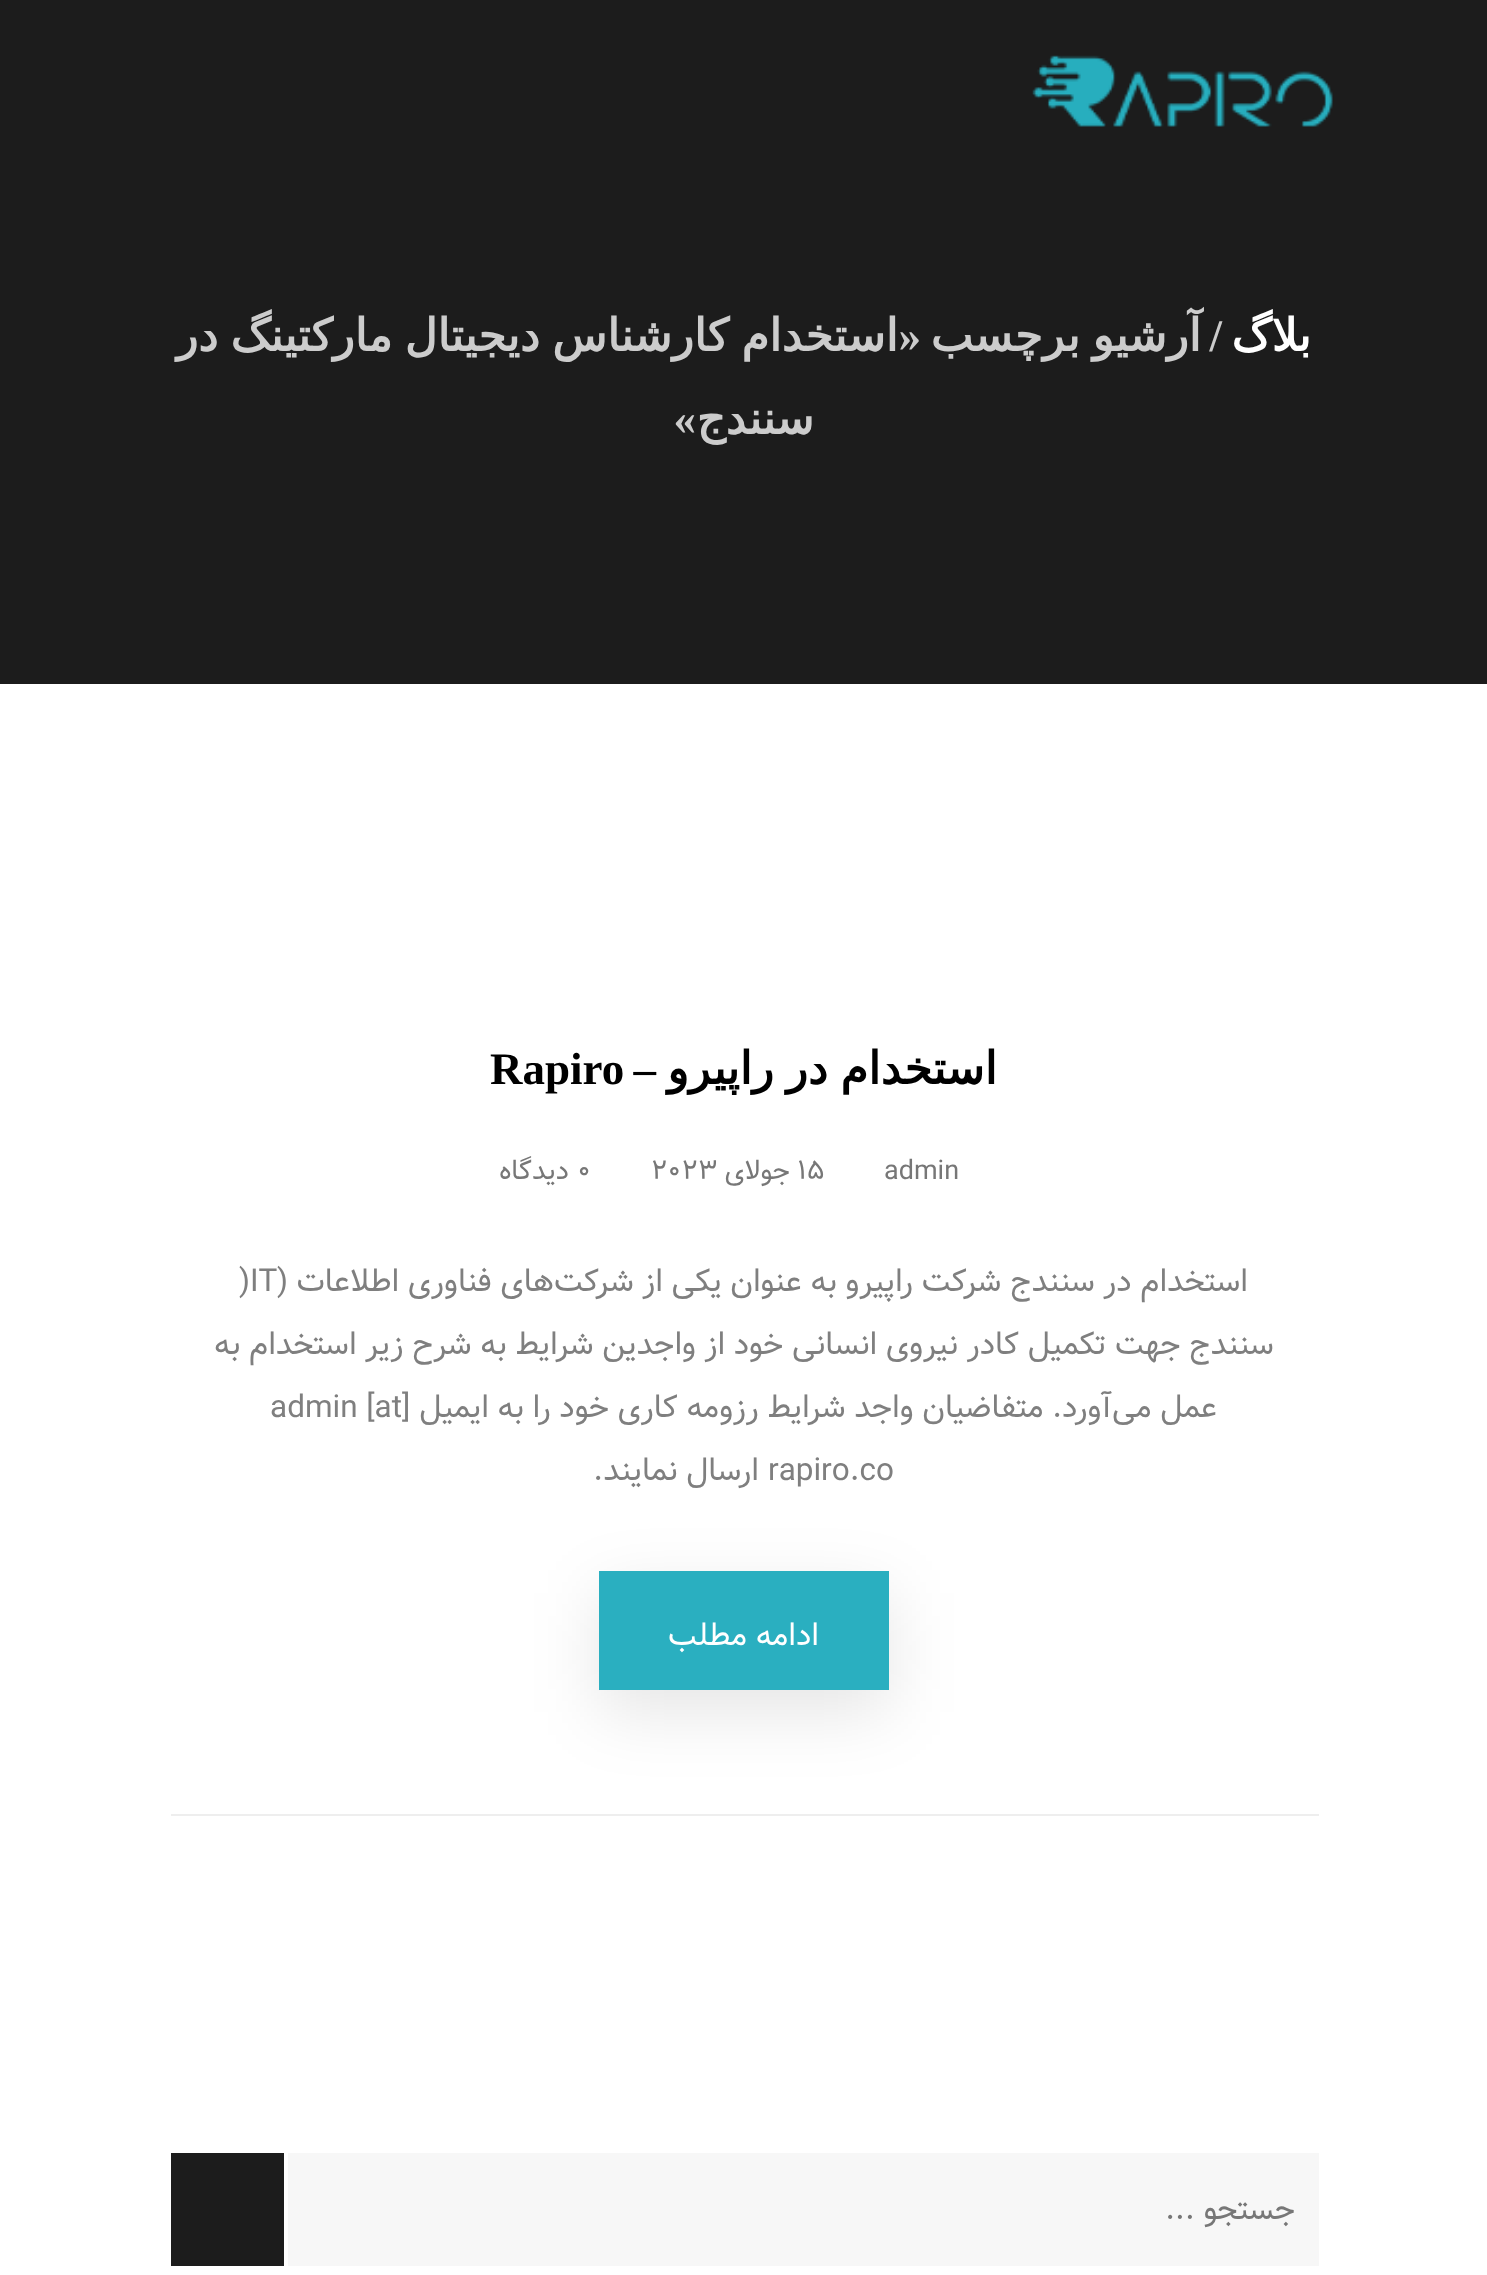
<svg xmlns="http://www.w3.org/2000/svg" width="1487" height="2275">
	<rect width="100%" height="100%" fill="#FFFFFF" />
	<rect x="0" y="0" width="1487" height="684" fill="#1C1C1C" />
	<image x="1032" y="55" width="301" height="72" href="assets/img1.png" />
	<text x="1311" y="351" font-family="DejaVu Sans" font-size="45" font-weight="700" direction="rtl" fill="#FFFFFF">بلاگ</text>
	<text x="1222" y="351" font-family="Liberation Serif" font-size="45" font-weight="700" direction="rtl" fill="#CCCCCC">/</text>
	<text x="1201" y="351" word-spacing="-2" font-family="DejaVu Sans" font-size="45" font-weight="700" direction="rtl" fill="#CCCCCC">آرشیو برچسب</text>
	<text x="921" y="351" font-family="Liberation Serif" font-size="45" font-weight="700" direction="rtl" fill="#CCCCCC">«</text>
	<g font-family="DejaVu Sans" font-size="45" font-weight="700" direction="rtl" fill="#CCCCCC">
		<text x="898" y="351" word-spacing="-2">استخدام کارشناس دیجیتال مارکتینگ در</text>
		<text x="814" y="434">سنندج</text>
	</g>
	<text x="696" y="434" font-family="Liberation Serif" font-size="45" font-weight="700" direction="rtl" fill="#CCCCCC">»</text>
	<rect x="171" y="1814" width="1148" height="2" fill="#EEEEEE" />
	<text x="997" y="1084" word-spacing="-2" font-family="DejaVu Sans" font-size="45" font-weight="700" direction="rtl" fill="#000000">استخدام در راپیرو</text>
	<text x="656" y="1084" font-family="Liberation Serif" font-size="45" font-weight="700" direction="rtl" fill="#000000">–</text>
	<text x="490" y="1084" font-family="Liberation Serif" font-size="45" font-weight="700" fill="#000000">Rapiro</text>
	<g font-family="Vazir" font-size="27" fill="#777777">
		<text x="884" y="1179">admin</text>
		<text x="797" y="1179">15</text>
	</g>
	<text x="790" y="1179" font-family="Vazir" font-size="27" direction="rtl" fill="#777777">جولای</text>
	<g font-family="Vazir" font-size="27" fill="#777777">
		<text x="651" y="1179">2023</text>
		<text x="577" y="1179">۰</text>
	</g>
	<text x="569" y="1179" font-family="Vazir" font-size="27" direction="rtl" fill="#777777">دیدگاه</text>
	<text x="1248" y="1291" font-family="Vazir" font-size="31.5" direction="rtl" fill="#7F7F7F">استخدام در سنندج شرکت راپیرو به عنوان یکی از شرکت‌های فناوری اطلاعات (</text>
	<text x="239" y="1291" font-family="Vazir" font-size="31.5" fill="#7F7F7F">)IT</text>
	<g font-family="Vazir" font-size="31.5" direction="rtl" fill="#7F7F7F">
		<text x="1274" y="1354">سنندج جهت تکمیل کادر نیروی انسانی خود از واجدین شرایط به شرح زیر استخدام به</text>
		<text x="1217" y="1417">عمل می‌آورد. متفاضیان واجد شرایط رزومه کاری خود را به ایمیل</text>
	</g>
	<g font-family="Vazir" font-size="31.5" fill="#7F7F7F">
		<text x="270" y="1417">admin [at]</text>
		<text x="768" y="1480">rapiro.co</text>
	</g>
	<text x="759" y="1480" font-family="Vazir" font-size="31.5" direction="rtl" fill="#7F7F7F">ارسال نمایند.</text>
	<rect x="599" y="1593" width="290" height="119" fill="#000000" fill-opacity="0.1" filter="blur(34px)" />
	<rect x="599" y="1571" width="290" height="119" fill="#2AAFC0" />
	<text x="819" y="1645" font-family="Vazir" font-size="31.5" direction="rtl" fill="#FFFFFF">ادامه مطلب</text>
	<rect x="288" y="2153" width="1031" height="113" fill="#F7F7F7" />
	<text x="1295" y="2219" font-family="Vazir" font-size="31.5" direction="rtl" fill="#777777">جستجو ...</text>
	<rect x="171" y="2153" width="113" height="113" fill="#1C1C1C" />
</svg>
